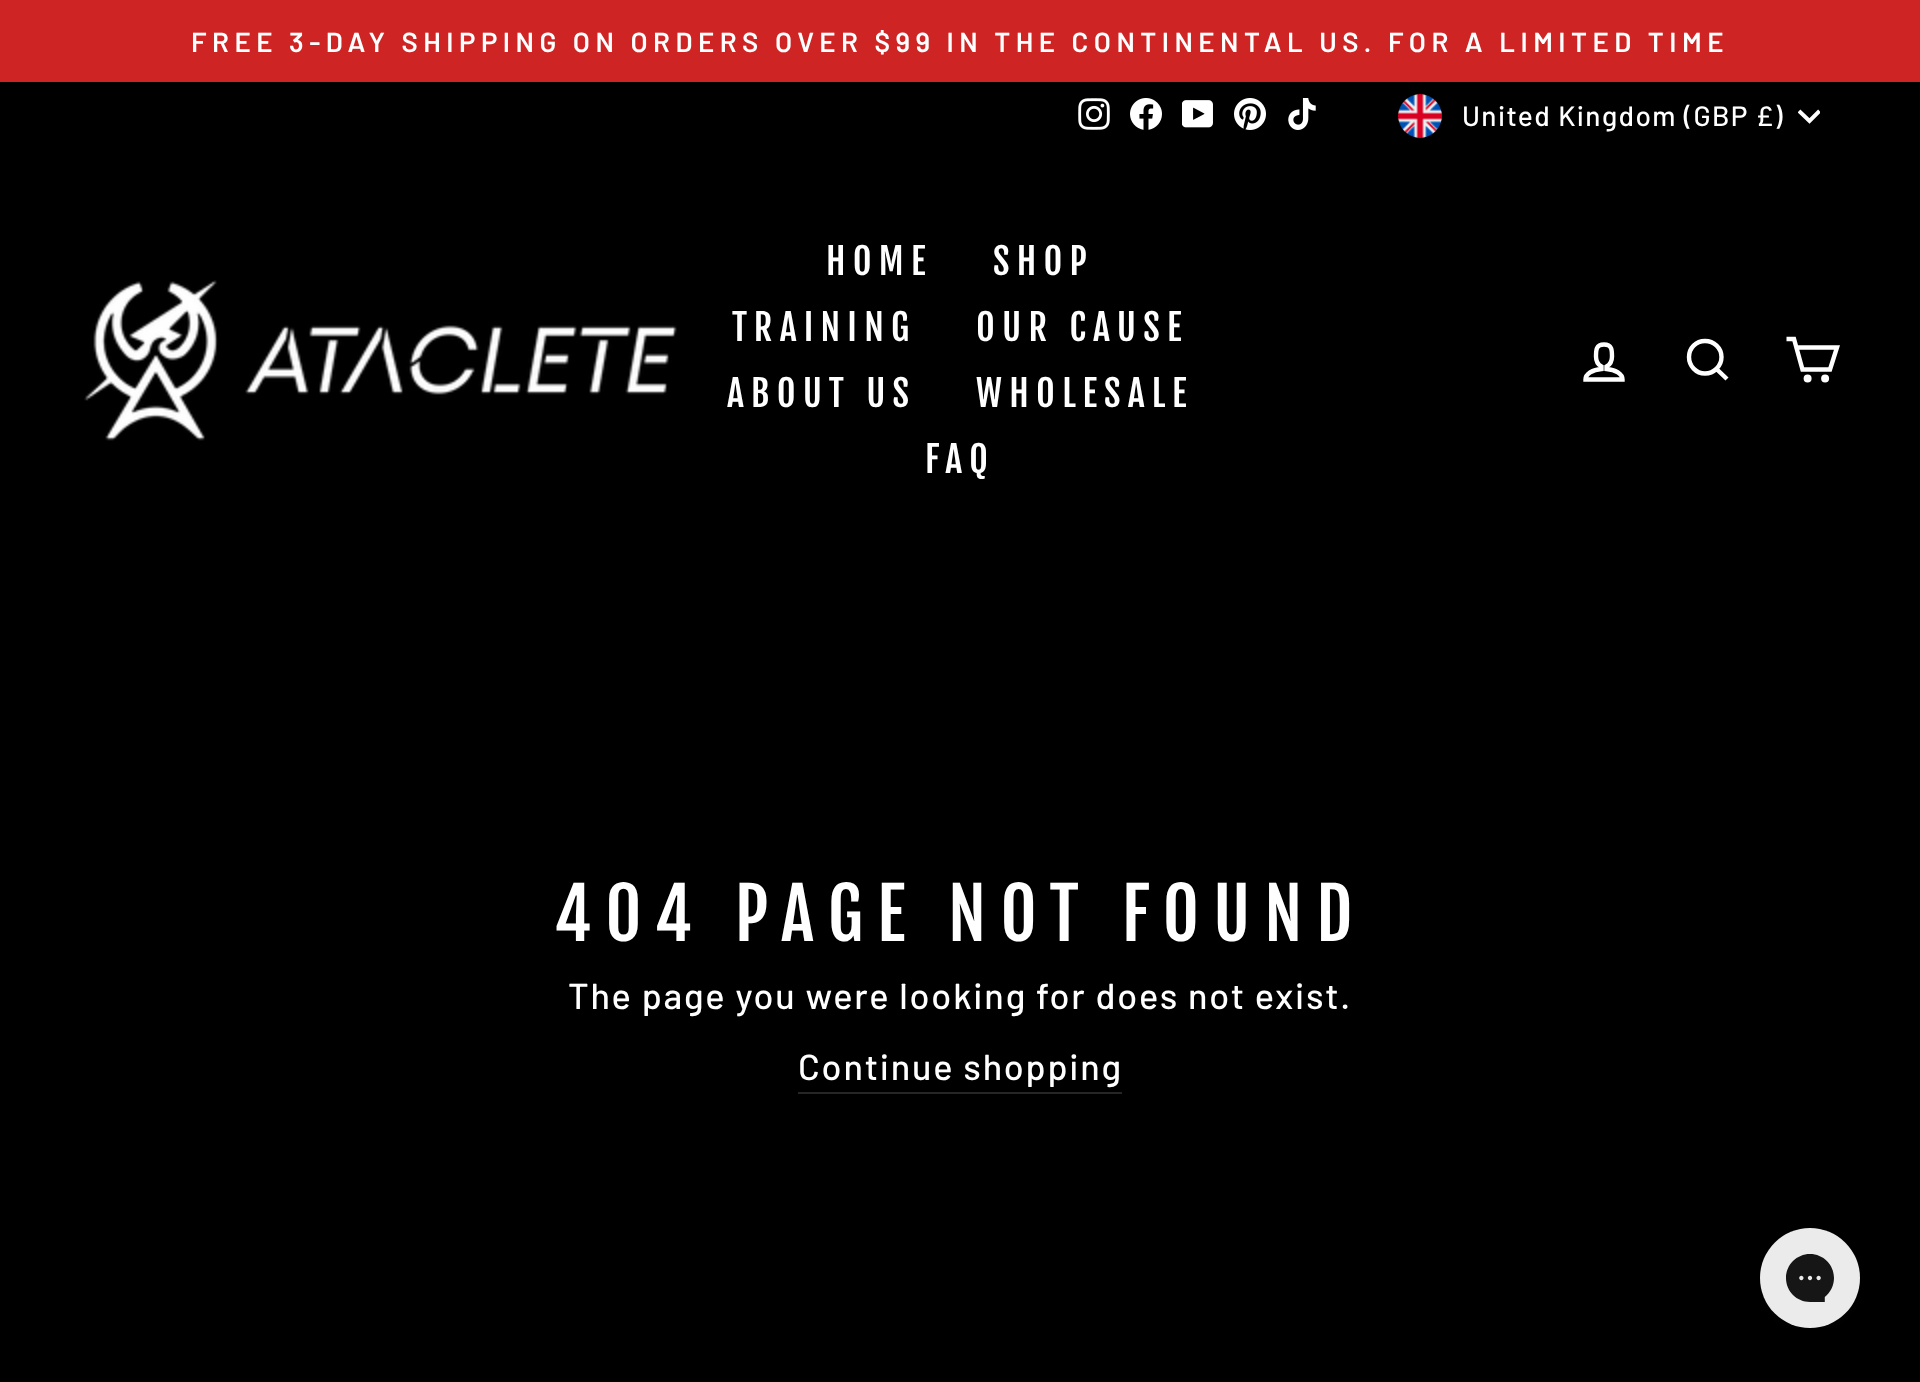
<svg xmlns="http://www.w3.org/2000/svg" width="1920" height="1382">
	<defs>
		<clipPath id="clip1"><rect x="1798" y="106" width="22" height="22" /></clipPath>
	</defs>
	<rect width="100%" height="100%" fill="#000000" />
	<rect x="0" y="0" width="1920" height="82" fill="#CF2424" />
	<text x="191" y="52" font-family="Barlow" font-size="27.55" font-weight="600" letter-spacing="5.5" fill="#FFFFFF">FREE 3-DAY SHIPPING ON ORDERS OVER $99 IN THE CONTINENTAL US. FOR A LIMITED TIME</text>
	<image x="1078" y="98" width="32" height="32" href="assets/img1.png" />
	<image x="1130" y="98" width="32" height="32" href="assets/img2.png" />
	<image x="1182" y="100" width="31" height="28" href="assets/img3.png" />
	<image x="1234" y="98" width="32" height="32" href="assets/img4.png" />
	<image x="1288" y="98" width="28" height="32" href="assets/img5.png" />
	<image x="1398" y="94" width="44" height="44" href="assets/img6.png" />
	<text x="1462" y="126" font-family="Barlow" font-size="28" font-weight="500" letter-spacing="1.4" fill="#FFFFFF">United Kingdom (GBP £)</text>
	<g clip-path="url(#clip1)">
		<path d="M1799 111L1809.5 121L1819.5 111" fill="none" stroke="#FFFFFF" stroke-width="3.9" />
	</g>
	<image x="84" y="280" width="593" height="161" href="assets/img7.png" />
	<g font-family="Fjalla One" font-size="36" letter-spacing="7.25" fill="#FFFFFF">
		<text x="826" y="275">HOME</text>
		<text x="993" y="275">SHOP</text>
		<text x="732" y="341">TRAINING</text>
		<text x="976" y="341">OUR CAUSE</text>
		<text x="727" y="407">ABOUT US</text>
		<text x="976" y="407">WHOLESALE</text>
		<text x="925" y="473">FAQ</text>
	</g>
	<path d="M1606.5 369V366.5C1609.5 365 1612 361 1612 356.5C1612 350 1612 344.5 1604 344.5C1596 344.5 1596 350 1596 356.5C1596 361 1598.5 365 1601.5 366.5V369C1592.5 369.5 1585.5 374 1585.5 379.5H1622.5C1622.5 374 1615.5 369.5 1606.5 369Z" fill="none" stroke="#FFFFFF" stroke-width="4.4" />
	<path d="M1721.5 357C1721.5 366 1714 373.5 1705 373.5C1696 373.5 1689 366 1689 357C1689 348 1696 341 1705 341C1714 341 1721.5 348 1721.5 357ZM1727 379L1716.5 369" fill="none" stroke="#FFFFFF" stroke-width="4.4" />
	<path d="M1796 347.5H1837L1830 369.5H1802.5L1794 339H1786.5" fill="none" stroke="#FFFFFF" stroke-width="4.4" />
	<circle cx="1807.6" cy="378.4" r="1.8" fill="#FFFFFF" stroke="#FFFFFF" stroke-width="4.4" />
	<circle cx="1825.1" cy="378.4" r="1.8" fill="#FFFFFF" stroke="#FFFFFF" stroke-width="4.4" />
	<text x="554" y="941" font-family="Fjalla One" font-size="70" letter-spacing="14" fill="#FFFFFF">404 PAGE NOT FOUND</text>
	<text x="568" y="1009" font-family="Barlow" font-size="36" font-weight="500" letter-spacing="1.8" fill="#FFFFFF">The page you were looking for does not exist.</text>
	<rect x="798" y="1092" width="324" height="2" fill="#262626" />
	<text x="798" y="1080" font-family="Barlow" font-size="36" font-weight="500" letter-spacing="1.8" fill="#FFFFFF">Continue shopping</text>
	<image x="1760" y="1228" width="100" height="100" href="assets/img8.png" />
</svg>
